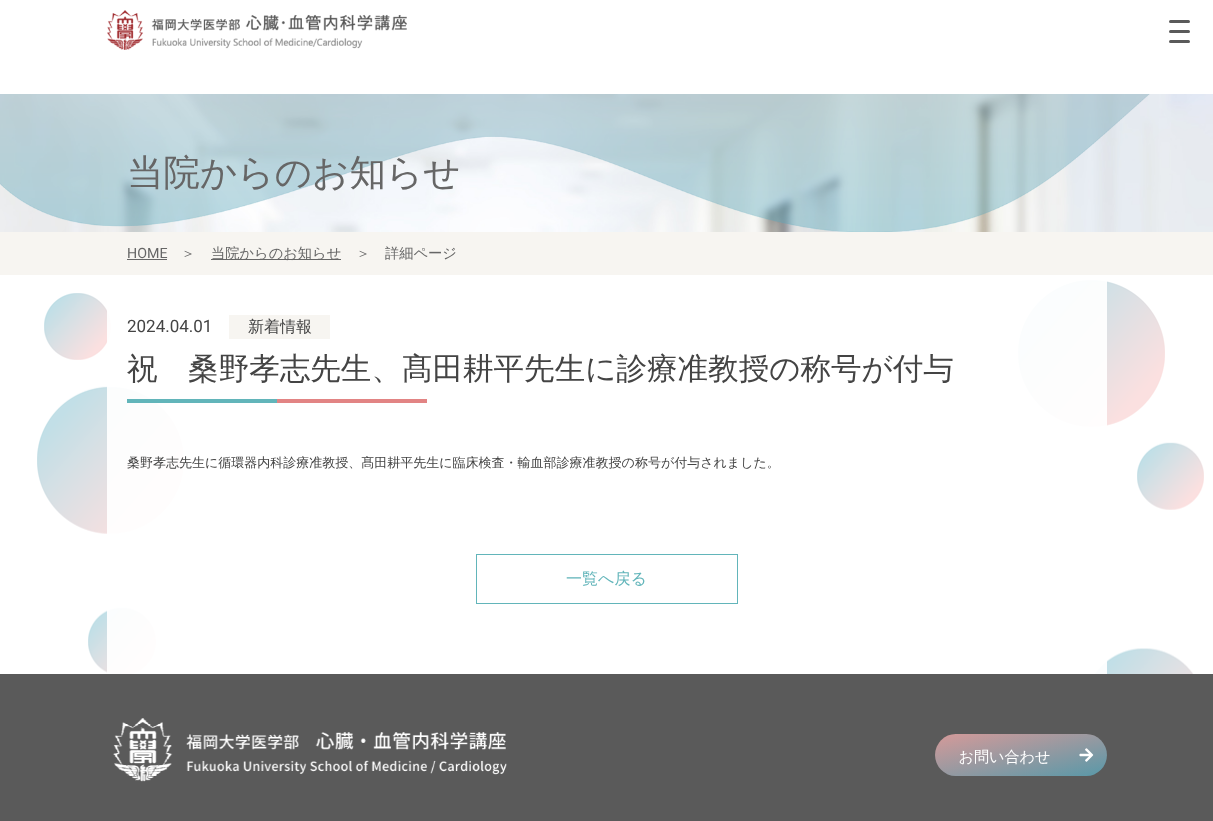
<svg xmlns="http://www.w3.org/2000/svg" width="1213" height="821">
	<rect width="100%" height="100%" fill="#FFFFFF" />
	<image x="107" y="10" width="300" height="40" href="assets/img1.png" />
	<rect x="1169" y="20" width="21" height="3" rx="1.5" fill="#5A5A5A" />
	<rect x="1169" y="30" width="21" height="3" rx="1.5" fill="#5A5A5A" />
	<rect x="1169" y="40" width="21" height="3" rx="1.5" fill="#5A5A5A" />
	<image x="0" y="94" width="1213" height="138" href="assets/img2.png" />
	<text x="127" y="185" font-family="WenQuanYi Zen Hei" font-size="36.5" font-weight="500" fill="#666666">当院からのお知らせ</text>
	<rect x="0" y="232" width="1213" height="43" fill="#F7F5F1" />
	<text x="127" y="258" font-family="Roboto" font-size="14.25" fill="#666666">HOME</text>
	<rect x="127" y="259" width="40" height="1" fill="#666666" />
	<text x="181" y="258" font-family="WenQuanYi Zen Hei" font-size="14.25" font-weight="500" fill="#666666">＞</text>
	<rect x="211" y="259" width="130" height="1" fill="#666666" />
	<g font-family="WenQuanYi Zen Hei" font-size="14.25" font-weight="500" fill="#666666">
		<text x="211" y="258">当院からのお知らせ</text>
		<text x="356" y="258">＞</text>
		<text x="385" y="258">詳細ページ</text>
	</g>
	<image x="37" y="280" width="1167" height="394" href="assets/img3.png" />
	<rect x="107" y="280" width="1000" height="394" fill="#FFFFFF" fill-opacity="0.93" />
	<text x="127" y="332" font-family="Roboto" font-size="17" fill="#444444">2024.04.01</text>
	<rect x="229" y="315" width="101" height="24" fill="#F7F5F1" />
	<text x="248" y="332" font-family="WenQuanYi Zen Hei" font-size="16" font-weight="500" fill="#444444">新着情報</text>
	<text x="127" y="379" font-family="WenQuanYi Zen Hei" font-size="30.55" font-weight="500" fill="#444444">祝　桑野孝志先生、髙田耕平先生に診療准教授の称号が付与</text>
	<rect x="127" y="399" width="150" height="4" fill="#62B5BA" />
	<rect x="277" y="399" width="150" height="4" fill="#E28484" />
	<text x="127" y="467" font-family="WenQuanYi Zen Hei" font-size="13" font-weight="500" fill="#444444">桑野孝志先生に循環器内科診療准教授、髙田耕平先生に臨床検査・輸血部診療准教授の称号が付与されました。</text>
	<rect x="476.5" y="554.5" width="261" height="49" fill="none" stroke="#62B5BA" />
	<text x="566" y="584" font-family="WenQuanYi Zen Hei" font-size="16" font-weight="500" fill="#62B5BA">一覧へ戻る</text>
	<rect x="0" y="674" width="1213" height="147" fill="#5A5A5A" />
	<image x="113" y="718" width="394" height="64" href="assets/img4.png" />
	<image x="935" y="734" width="172" height="42" href="assets/img5.png" />
</svg>
